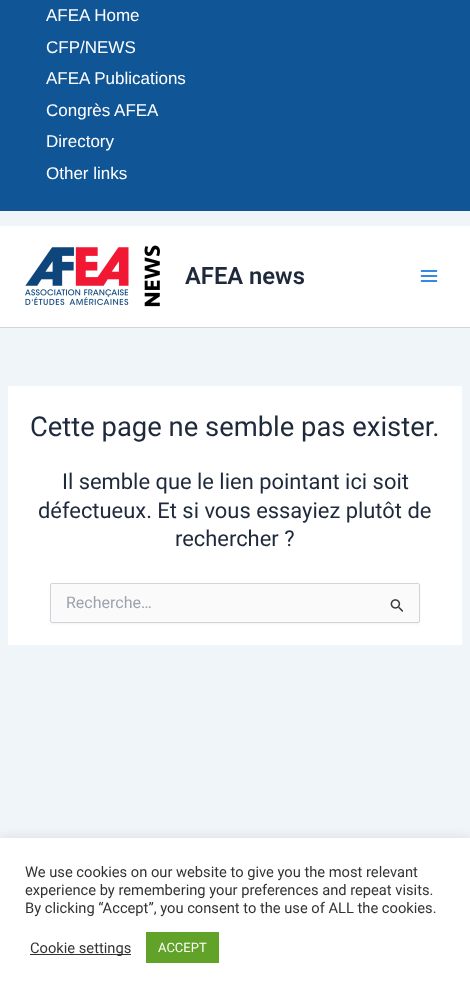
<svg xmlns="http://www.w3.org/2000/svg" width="470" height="993">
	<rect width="100%" height="100%" fill="#F0F5FA" />
	<rect x="0" y="0" width="470" height="211" fill="#105596" />
	<g font-family="Liberation Sans" font-size="17" fill="#FFFFFF">
		<text x="46" y="21">AFEA Home</text>
		<text x="46" y="53">CFP/NEWS</text>
		<text x="46" y="84">AFEA Publications</text>
		<text x="46" y="116">Congrès AFEA</text>
		<text x="46" y="147">Directory</text>
		<text x="46" y="179">Other links</text>
	</g>
	<rect x="0" y="226" width="470" height="101" fill="#FFFFFF" />
	<rect x="0" y="327" width="470" height="1" fill="#D1D5DB" />
	<image x="25" y="245" width="135" height="62" href="assets/img1.png" />
	<text x="185" y="284" font-family="Roboto" font-size="23.75" font-weight="600" fill="#1E293B">AFEA news</text>
	<image x="420" y="270" width="18" height="12" href="assets/img2.png" />
	<rect x="8" y="386" width="454" height="259" fill="#FFFFFF" />
	<text x="30" y="436" font-family="Roboto" font-size="27.4" fill="#1E293B">Cette page ne semble pas exister.</text>
	<g font-family="Roboto" font-size="21.9" fill="#1E293B">
		<text x="62" y="489">Il semble que le lien pointant ici soit</text>
		<text x="38" y="518">défectueux. Et si vous essayiez plutôt de</text>
		<text x="175" y="546">rechercher ?</text>
	</g>
	<rect x="50" y="584" width="370" height="40" rx="2" fill="#000000" fill-opacity="0.05" filter="blur(1px)" />
	<rect x="50.5" y="583.5" width="369" height="39" rx="1.5" fill="#FAFAFA" stroke="#D1D5DB" />
	<text x="66" y="608" font-family="Roboto" font-size="16" fill="#9CA3AF">Recherche…</text>
	<image x="390" y="599" width="13" height="13" href="assets/img3.png" />
	<rect x="0" y="837" width="470" height="155" fill="#ACABAB" fill-opacity="0.3" filter="blur(5px)" />
	<rect x="0" y="838" width="470" height="155" fill="#FFFFFF" />
	<g font-family="Roboto" font-size="14.7" fill="#333333">
		<text x="25" y="877">We use cookies on our website to give you the most relevant</text>
		<text x="25" y="895">experience by remembering your preferences and repeat visits.</text>
		<text x="25" y="913">By clicking “Accept”, you consent to the use of ALL the cookies.</text>
	</g>
	<rect x="30" y="954" width="101" height="1" fill="#333333" />
	<text x="30" y="953" font-family="Roboto" font-size="14.7" fill="#333333">Cookie settings</text>
	<rect x="146" y="932" width="73" height="31" fill="#61A229" />
	<text x="158" y="952" font-family="Roboto" font-size="13" fill="#FFFFFF">ACCEPT</text>
</svg>
